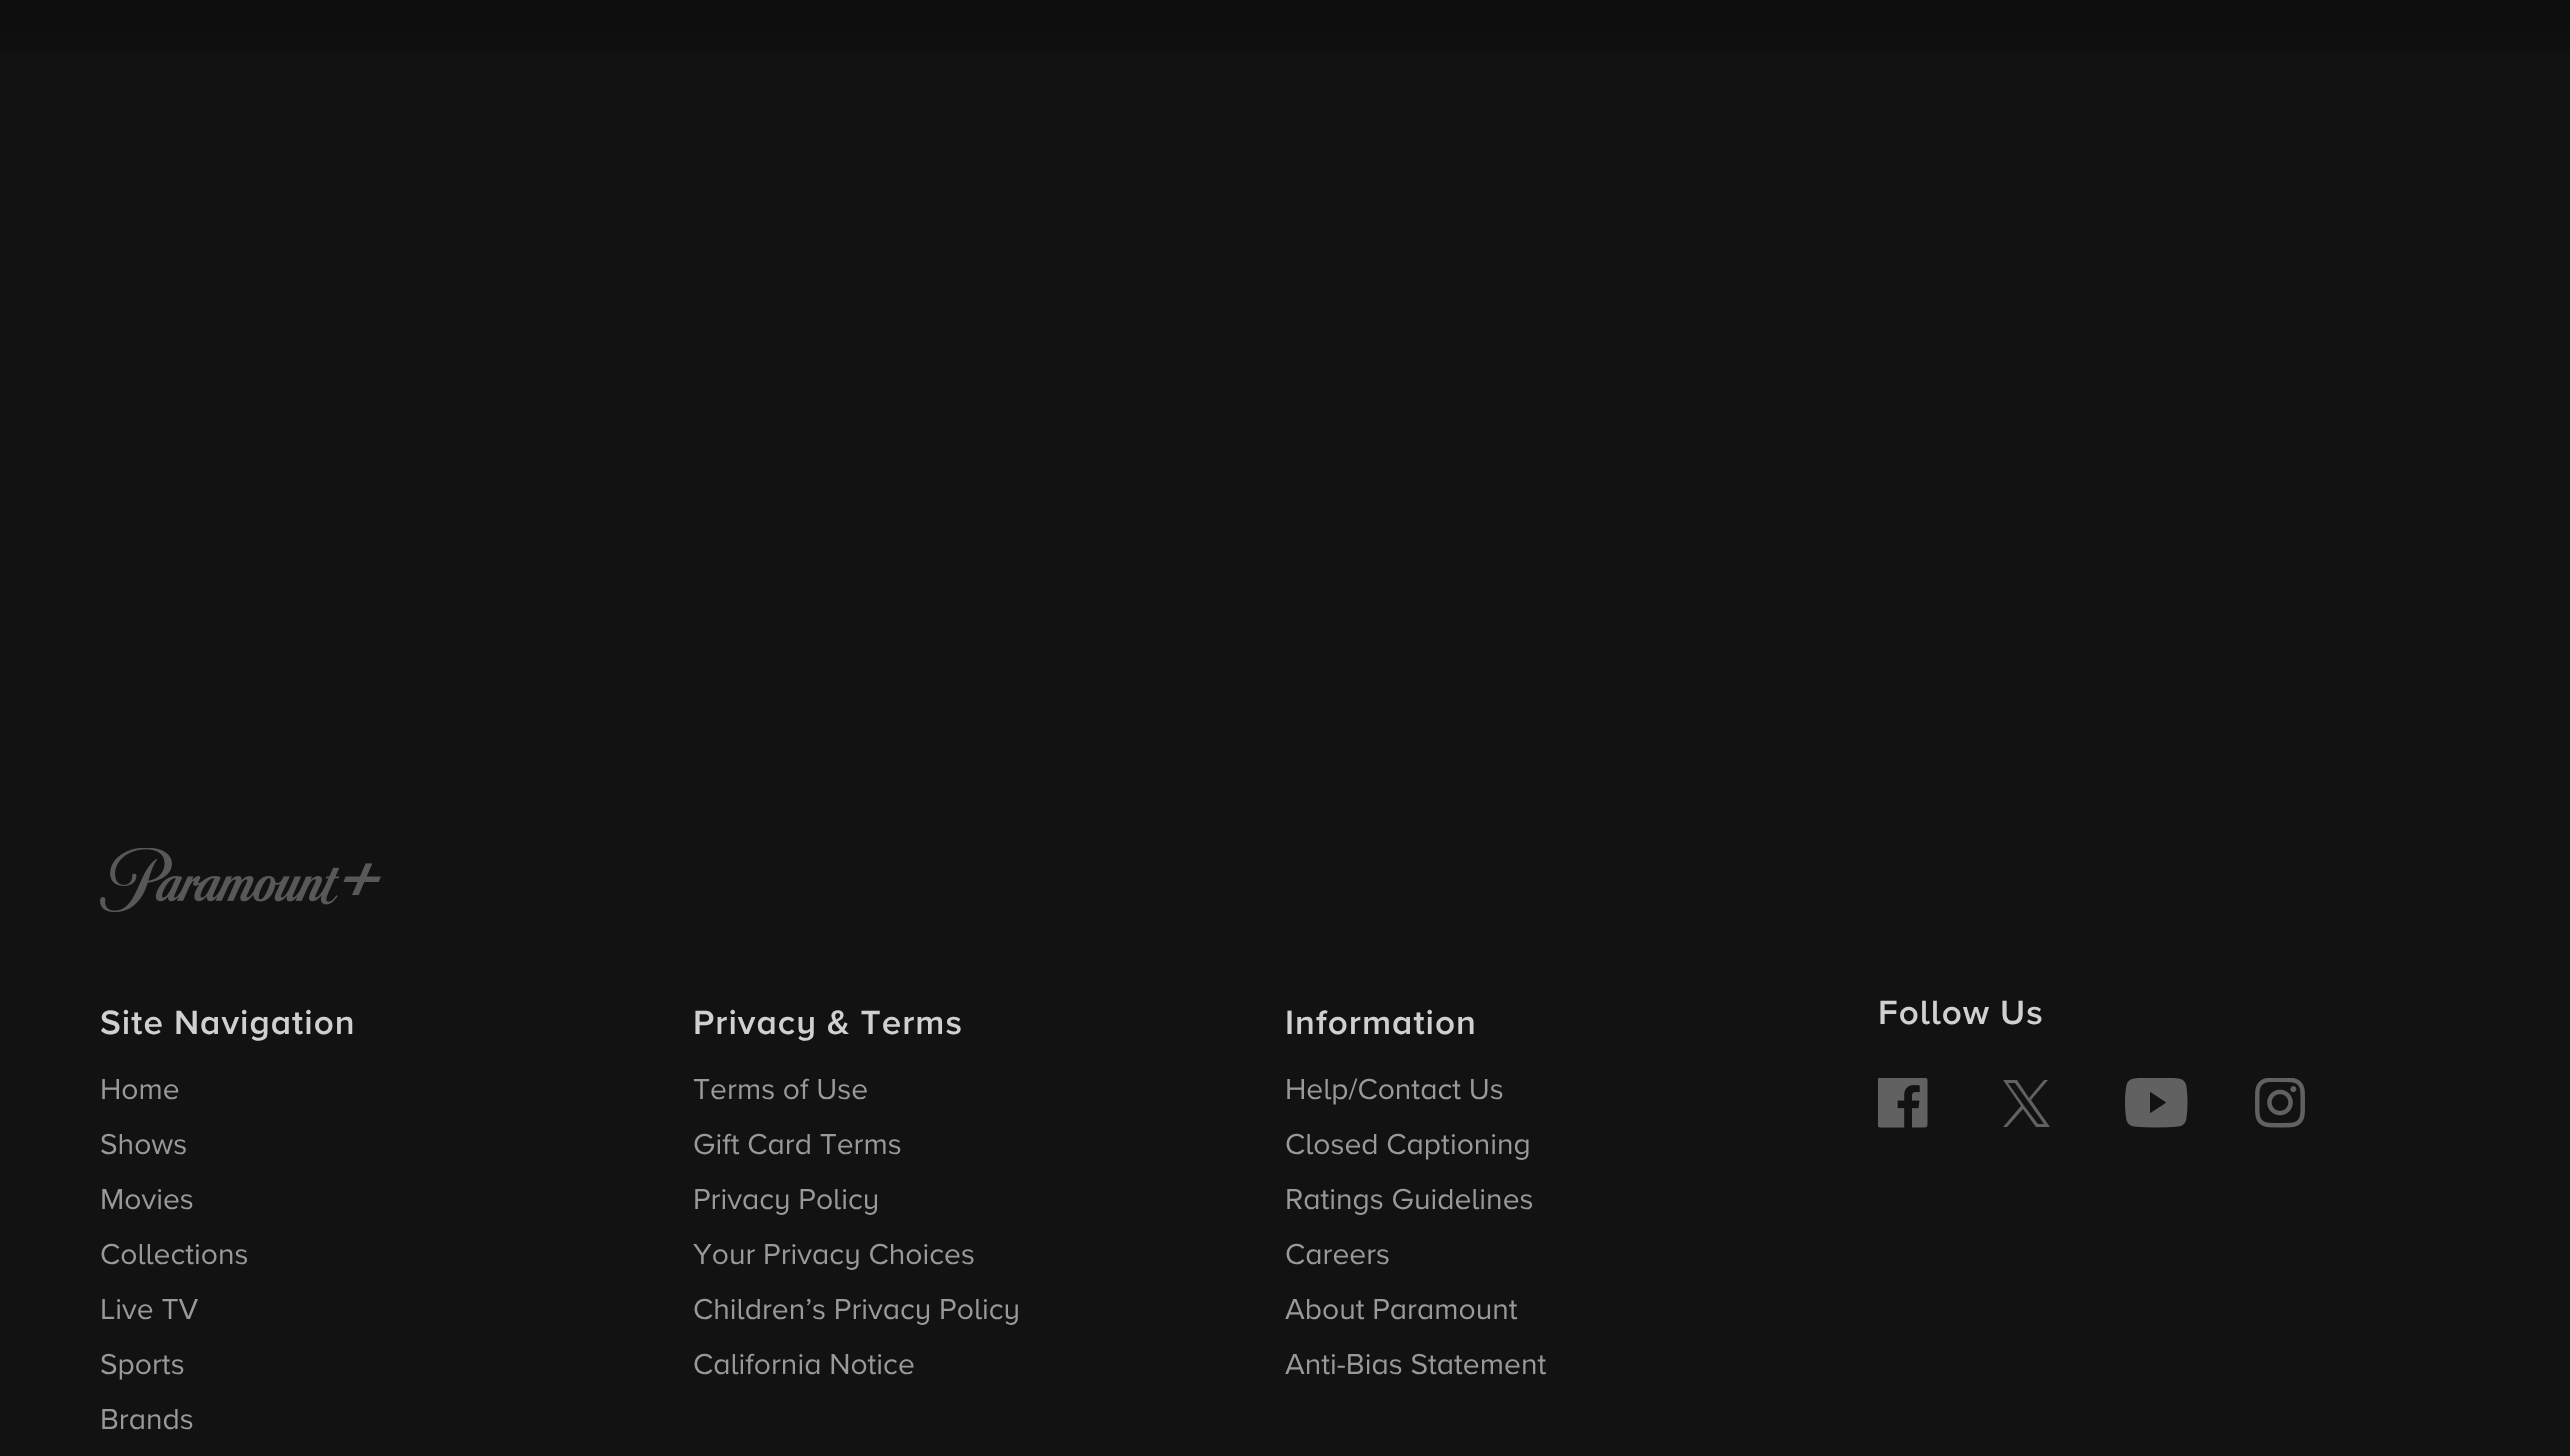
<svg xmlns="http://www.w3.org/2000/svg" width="2570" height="1456">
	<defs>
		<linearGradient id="g1" gradientUnits="userSpaceOnUse" x1="1285" y1="-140" x2="1285" y2="110"><stop offset="0" stop-color="#070707" /><stop offset="1" stop-color="#121212" /></linearGradient>
	</defs>
	<rect width="100%" height="100%" fill="#121212" />
	<rect x="0" y="0" width="2570" height="53" fill="url(#g1)" />
	<image x="100" y="848" width="281" height="65" href="assets/img1.png" />
	<text x="100" y="1034" font-family="Proxima Nova" font-size="35" letter-spacing="1" fill="#D0D0D0">Site Navigation</text>
	<g font-family="'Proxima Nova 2'" font-size="30" fill="#999999">
		<text x="100" y="1099">Home</text>
		<text x="100" y="1154">Shows</text>
		<text x="100" y="1209">Movies</text>
		<text x="100" y="1264">Collections</text>
		<text x="100" y="1319">Live TV</text>
		<text x="100" y="1374">Sports</text>
		<text x="100" y="1429">Brands</text>
	</g>
	<text x="693" y="1034" font-family="Proxima Nova" font-size="35" letter-spacing="1" fill="#D0D0D0">Privacy &amp; Terms</text>
	<g font-family="'Proxima Nova 2'" font-size="30" fill="#999999">
		<text x="693" y="1099">Terms of Use</text>
		<text x="693" y="1154">Gift Card Terms</text>
		<text x="693" y="1209">Privacy Policy</text>
		<text x="693" y="1264">Your Privacy Choices</text>
		<text x="693" y="1319">Children’s Privacy Policy</text>
		<text x="693" y="1374">California Notice</text>
	</g>
	<text x="1285" y="1034" font-family="Proxima Nova" font-size="35" letter-spacing="1" fill="#D0D0D0">Information</text>
	<g font-family="'Proxima Nova 2'" font-size="30" fill="#999999">
		<text x="1285" y="1099">Help/Contact Us</text>
		<text x="1285" y="1154">Closed Captioning</text>
		<text x="1285" y="1209">Ratings Guidelines</text>
		<text x="1285" y="1264">Careers</text>
		<text x="1285" y="1319">About Paramount</text>
		<text x="1285" y="1374">Anti-Bias Statement</text>
	</g>
	<text x="1878" y="1024" font-family="Proxima Nova" font-size="35" letter-spacing="1" fill="#D0D0D0">Follow Us</text>
	<image x="1878" y="1078" width="50" height="50" href="assets/img2.png" />
	<path d="M2031 1100L2048 1080H2044L2029 1098L2017 1080H2003L2021 1106L2003 1127H2007L2023 1109L2036 1127H2050ZM2025 1107L2008 1083H2015L2044 1124H2038Z" fill="#616161" />
	<image x="2125" y="1078" width="63" height="50" href="assets/img3.png" />
	<image x="2255" y="1078" width="50" height="50" href="assets/img4.png" />
</svg>
